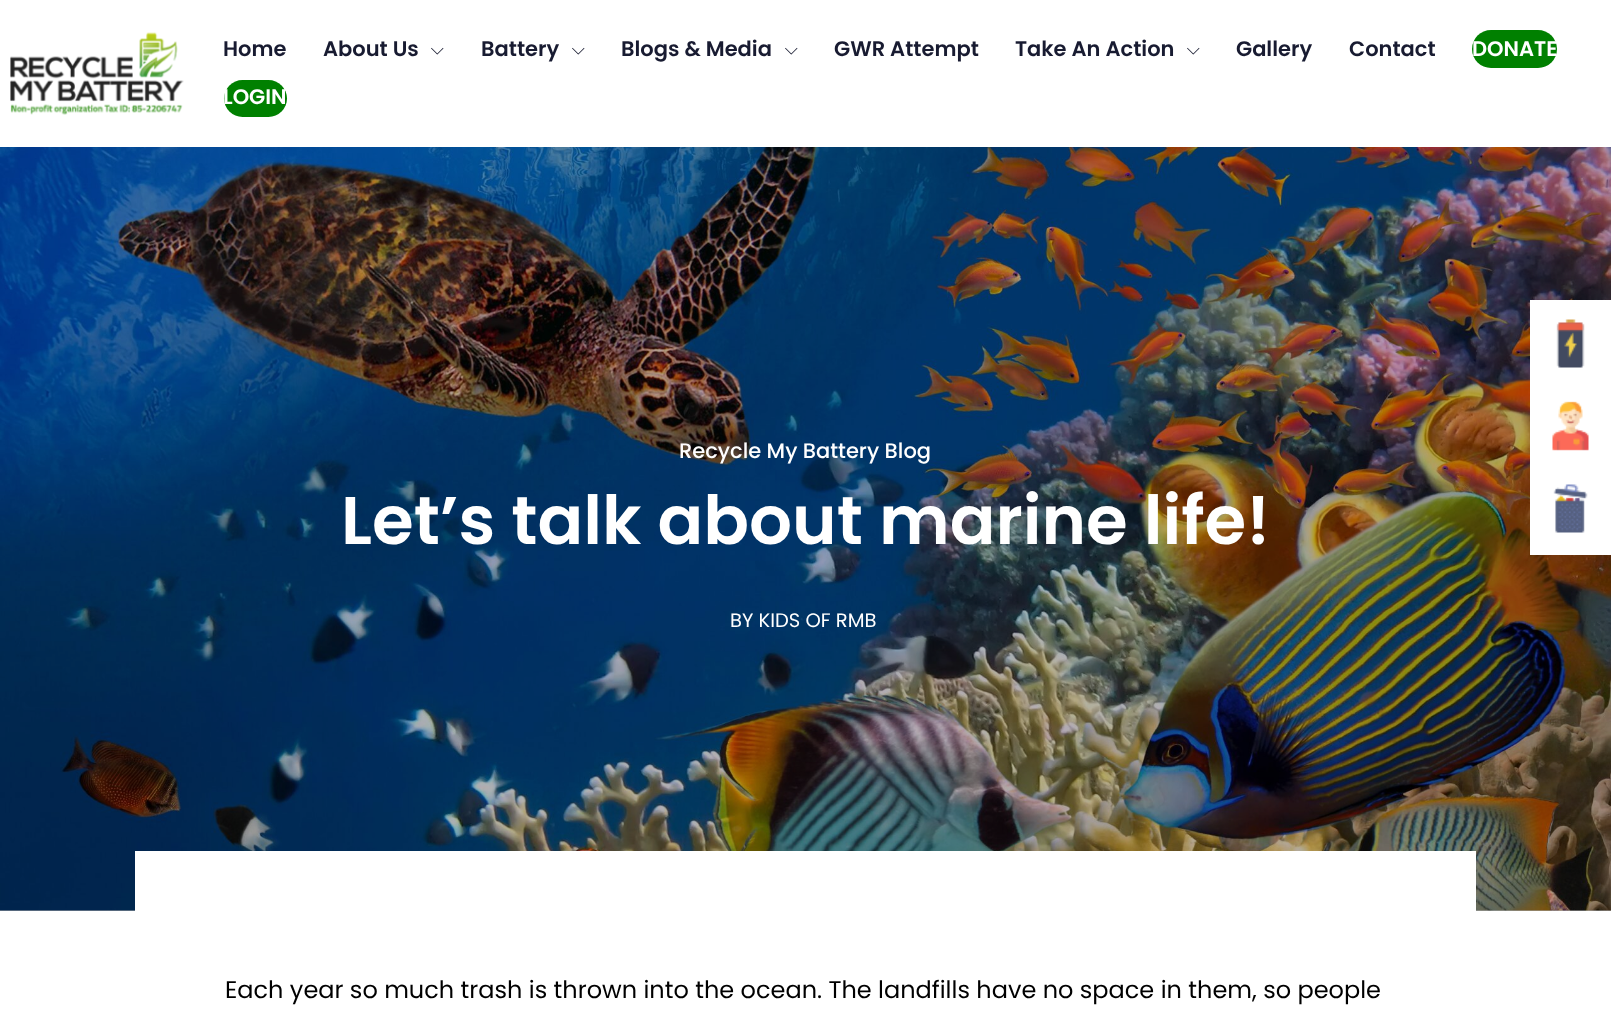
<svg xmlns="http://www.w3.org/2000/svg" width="1611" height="1019">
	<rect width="100%" height="100%" fill="#FFFFFF" />
	<image x="10" y="32" width="174" height="83" href="assets/img1.png" />
	<g font-family="Poppins" font-size="21" font-weight="600" fill="#181B31">
		<text x="223" y="56">Home</text>
		<text x="323" y="56">About Us</text>
	</g>
	<image x="431" y="47" width="13" height="8" href="assets/img2.png" />
	<text x="481" y="56" font-family="Poppins" font-size="21" font-weight="600" fill="#181B31">Battery</text>
	<image x="572" y="47" width="13" height="8" href="assets/img2.png" />
	<text x="621" y="56" font-family="Poppins" font-size="21" font-weight="600" fill="#181B31">Blogs &amp; Media</text>
	<image x="785" y="47" width="13" height="8" href="assets/img2.png" />
	<g font-family="Poppins" font-size="21" font-weight="600" fill="#181B31">
		<text x="834" y="56">GWR Attempt</text>
		<text x="1015" y="56">Take An Action</text>
	</g>
	<image x="1187" y="47" width="13" height="8" href="assets/img2.png" />
	<g font-family="Poppins" font-size="21" font-weight="600" fill="#181B31">
		<text x="1236" y="56">Gallery</text>
		<text x="1349" y="56">Contact</text>
	</g>
	<rect x="1472" y="30" width="85" height="38" rx="19" fill="#008000" />
	<text x="1472" y="56" font-family="Poppins" font-size="21" font-weight="600" fill="#FFFFFF">DONATE</text>
	<rect x="224" y="80" width="63" height="37" rx="18.5" fill="#008000" />
	<text x="223" y="104" font-family="Poppins" font-size="21" font-weight="600" fill="#FFFFFF">LOGIN</text>
	<rect x="0" y="910" width="1611" height="1" fill="#AEAEAE" />
	<image x="0" y="147" width="1611" height="764" href="assets/img3.png" />
	<text x="679" y="458" font-family="Poppins" font-size="21" font-weight="500" fill="#FFFFFF">Recycle My Battery Blog</text>
	<text x="341" y="544" font-family="Poppins" font-size="67.5" font-weight="600" fill="#FFFFFF">Let’s talk about marine life!</text>
	<text x="730" y="627" font-family="Poppins" font-size="19.5" fill="#FFFFFF">BY KIDS OF RMB</text>
	<rect x="135" y="851" width="1341" height="60" fill="#FFFFFF" />
	<text x="225" y="998" font-family="Poppins" font-size="24" fill="#000000">Each year so much trash is thrown into the ocean. The landfills have no space in them, so people</text>
	<rect x="1530" y="300" width="81" height="255" fill="#FFFFFF" />
	<image x="1556" y="319" width="29" height="49" href="assets/img4.png" />
	<image x="1552" y="401" width="37" height="50" href="assets/img5.png" />
	<image x="1553" y="484" width="35" height="49" href="assets/img6.png" />
</svg>
